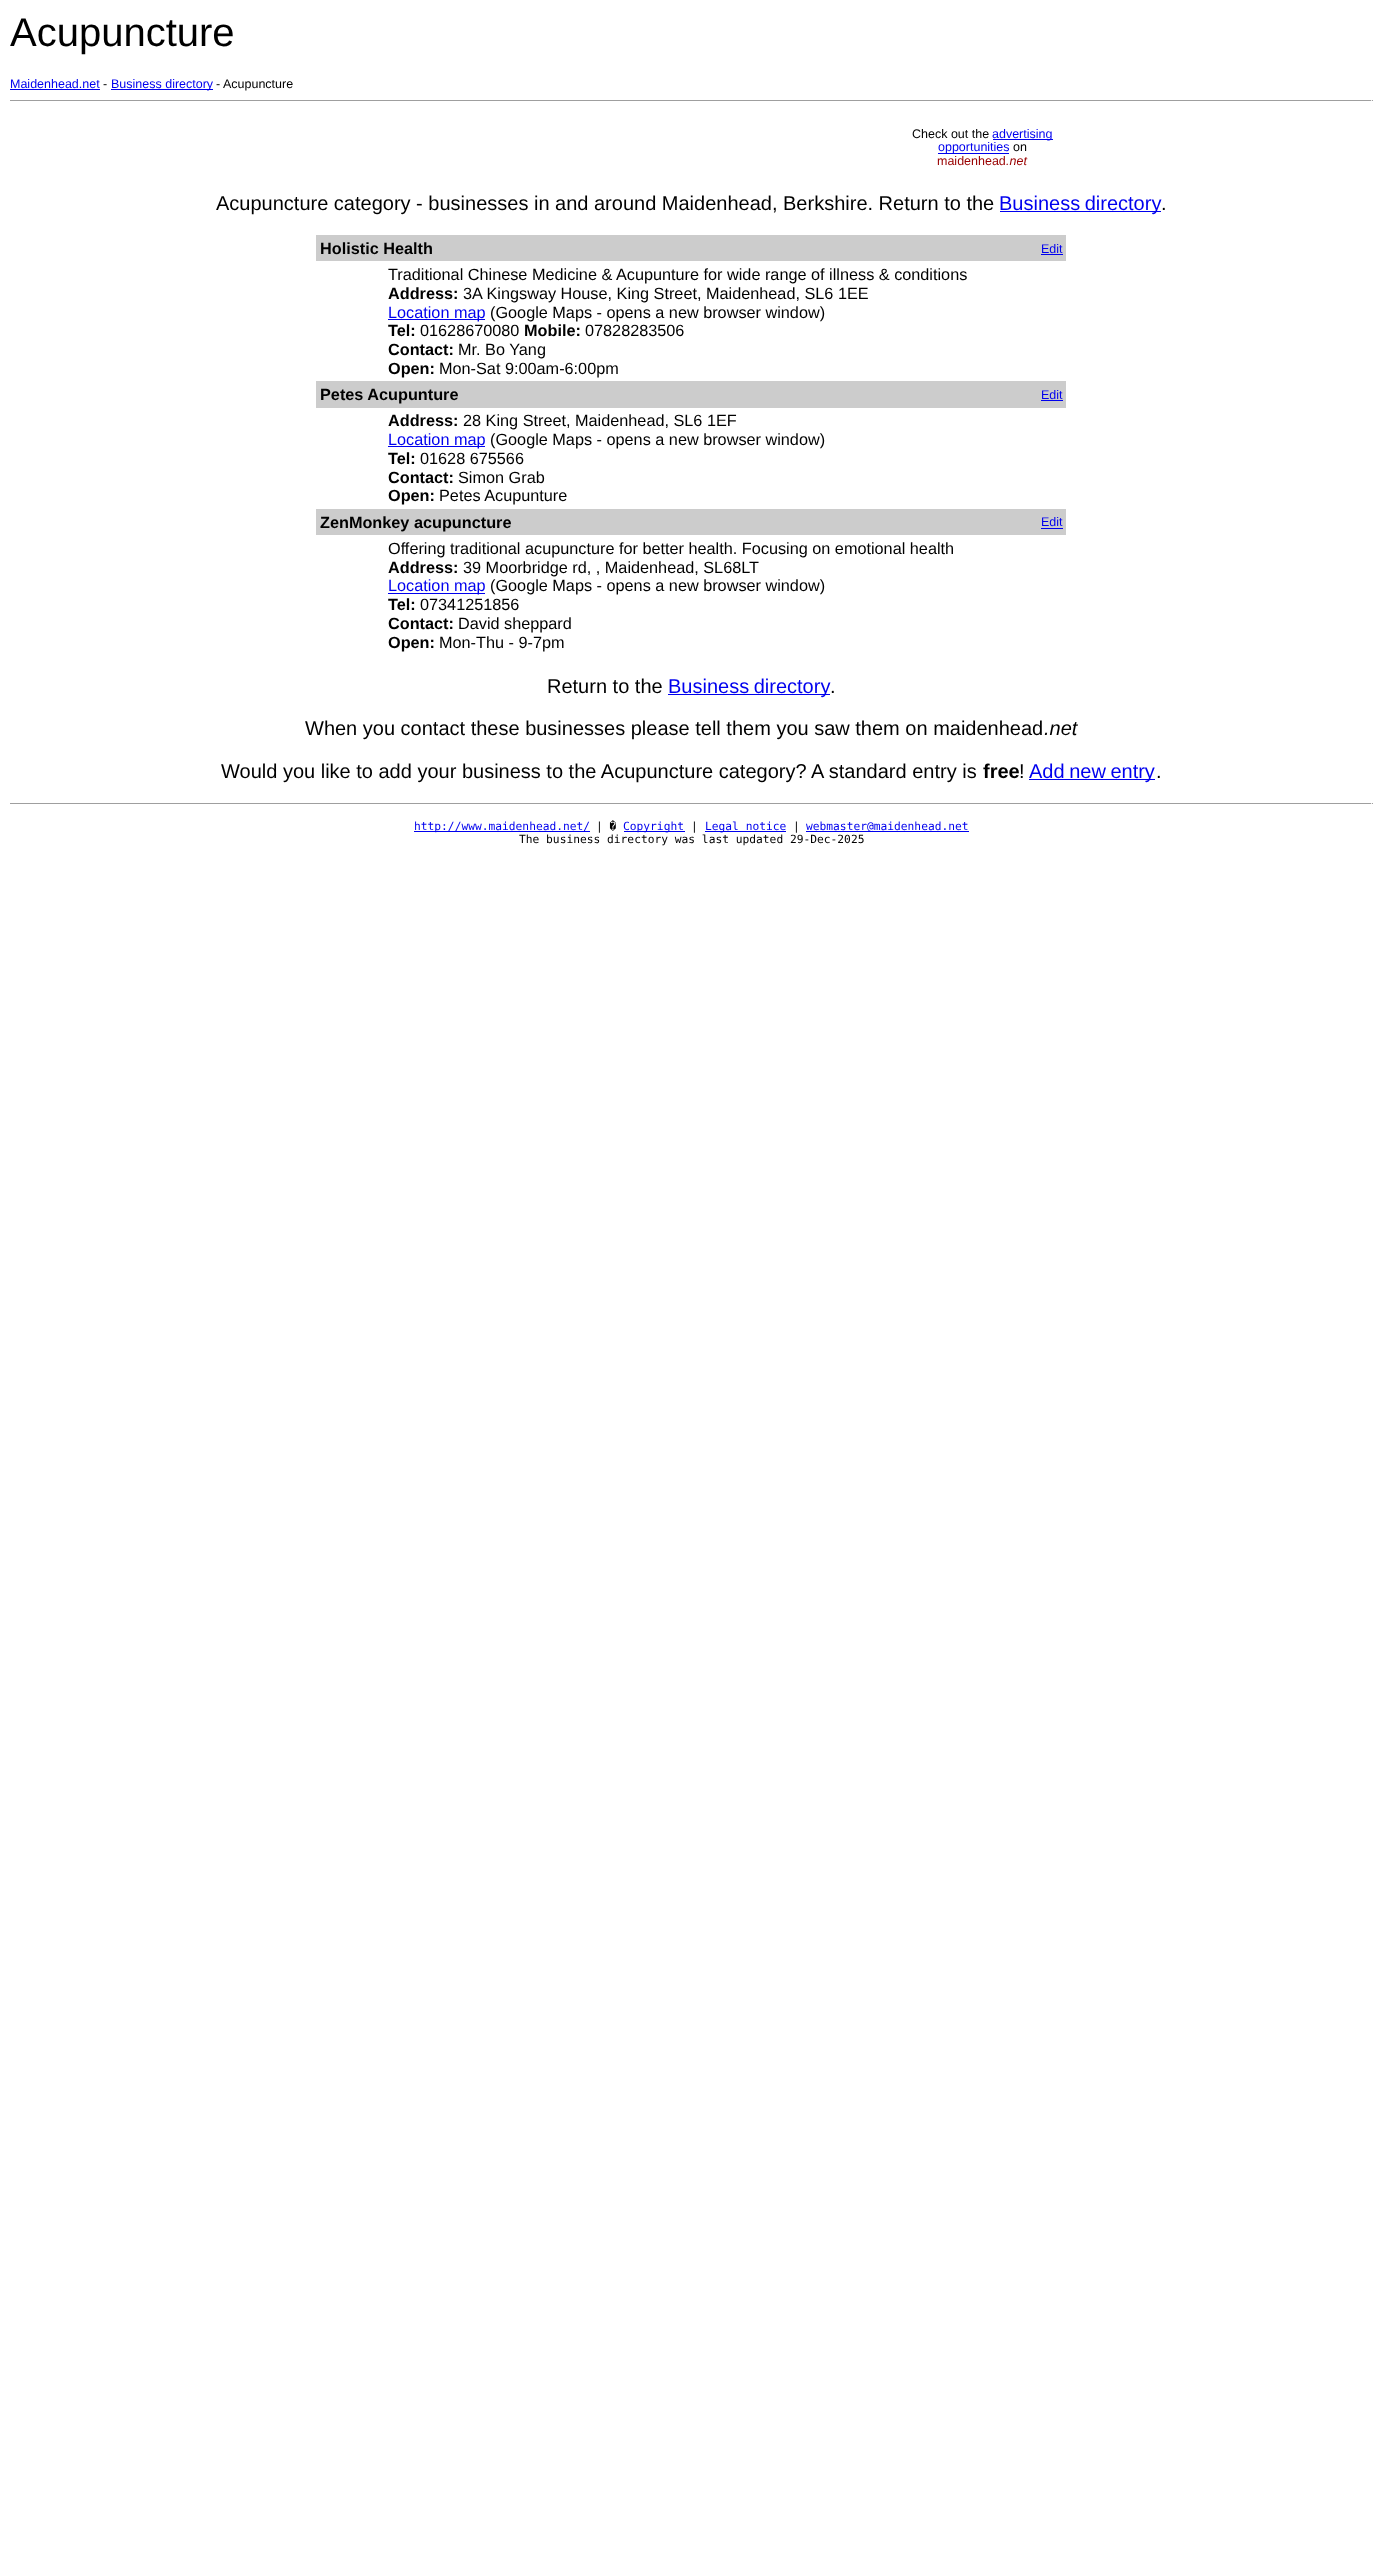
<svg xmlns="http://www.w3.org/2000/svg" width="1382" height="2569">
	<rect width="100%" height="100%" fill="#FFFFFF" />
	<text x="10" y="46" font-family="Liberation Sans" font-size="40" fill="#000000">Acupuncture</text>
	<text x="10" y="88" font-family="Liberation Sans" font-size="12.5" fill="#0000EE">Maidenhead.net</text>
	<rect x="10" y="89" width="90" height="1" fill="#0000EE" />
	<text x="103" y="88" font-family="Liberation Sans" font-size="12.5" fill="#000000">-</text>
	<rect x="111" y="89" width="102" height="1" fill="#0000EE" />
	<text x="111" y="88" font-family="Liberation Sans" font-size="12.5" fill="#0000EE">Business directory</text>
	<text x="216" y="88" font-family="Liberation Sans" font-size="12.5" fill="#000000">- Acupuncture</text>
	<rect x="10" y="100" width="1363" height="1" fill="#9F9F9F" />
	<rect x="1371" y="100" width="1" height="1" fill="#EEEEEE" />
	<text x="912" y="138" font-family="Liberation Sans" font-size="12.5" fill="#000000">Check out the</text>
	<rect x="993" y="139" width="60" height="1" fill="#0000EE" />
	<text x="992" y="138" font-family="Liberation Sans" font-size="12.5" fill="#0000EE">advertising</text>
	<rect x="938" y="153" width="71" height="1" fill="#0000EE" />
	<text x="938" y="151" font-family="Liberation Sans" font-size="12.5" fill="#0000EE">opportunities</text>
	<text x="1013" y="151" font-family="Liberation Sans" font-size="12.5" fill="#000000">on</text>
	<text x="937" y="165" font-family="Liberation Sans" font-size="12.5" fill="#990000">maidenhead</text>
	<text x="1006" y="165" font-family="Liberation Sans" font-size="12.5" font-style="italic" fill="#990000">.net</text>
	<text x="216" y="210" font-family="Liberation Sans" font-size="20" fill="#000000">Acupuncture category - businesses in and around Maidenhead, Berkshire. Return to the</text>
	<rect x="1000" y="211" width="161" height="1" fill="#0000EE" />
	<text x="999" y="210" word-spacing="-1" font-family="Liberation Sans" font-size="20" fill="#0000EE">Business directory</text>
	<text x="1161" y="210" font-family="Liberation Sans" font-size="20" fill="#000000">.</text>
	<rect x="316" y="235" width="750" height="26" fill="#CCCCCC" />
	<text x="320" y="254" font-family="Liberation Sans" font-size="16.25" font-weight="700" fill="#000000">Holistic Health</text>
	<text x="1041" y="253" font-family="Liberation Sans" font-size="12.5" fill="#0000EE">Edit</text>
	<rect x="1041" y="254" width="22" height="1" fill="#0000EE" />
	<text x="388" y="280" font-family="Liberation Sans" font-size="16.25" fill="#000000">Traditional Chinese Medicine &amp; Acupunture for wide range of illness &amp; conditions</text>
	<text x="388" y="299" font-family="Liberation Sans" font-size="16.25" font-weight="700" fill="#000000">Address:</text>
	<text x="463" y="299" font-family="Liberation Sans" font-size="16.25" fill="#000000">3A Kingsway House, King Street, Maidenhead, SL6 1EE</text>
	<rect x="388" y="319" width="97" height="1" fill="#0000EE" />
	<text x="388" y="318" font-family="Liberation Sans" font-size="16.25" fill="#0000EE">Location map</text>
	<text x="490" y="318" font-family="Liberation Sans" font-size="16.25" fill="#000000">(Google Maps - opens a new browser window)</text>
	<text x="388" y="336" font-family="Liberation Sans" font-size="16.25" font-weight="700" fill="#000000">Tel:</text>
	<text x="420" y="336" font-family="Liberation Sans" font-size="16.25" fill="#000000">01628670080</text>
	<text x="524" y="336" font-family="Liberation Sans" font-size="16.25" font-weight="700" fill="#000000">Mobile:</text>
	<text x="585" y="336" font-family="Liberation Sans" font-size="16.25" fill="#000000">07828283506</text>
	<text x="388" y="355" font-family="Liberation Sans" font-size="16.25" font-weight="700" fill="#000000">Contact:</text>
	<text x="458" y="355" font-family="Liberation Sans" font-size="16.25" fill="#000000">Mr. Bo Yang</text>
	<text x="388" y="374" font-family="Liberation Sans" font-size="16.25" font-weight="700" fill="#000000">Open:</text>
	<text x="439" y="374" font-family="Liberation Sans" font-size="16.25" fill="#000000">Mon-Sat 9:00am-6:00pm</text>
	<rect x="316" y="381" width="750" height="27" fill="#CCCCCC" />
	<text x="320" y="400" font-family="Liberation Sans" font-size="16.25" font-weight="700" fill="#000000">Petes Acupunture</text>
	<text x="1041" y="399" font-family="Liberation Sans" font-size="12.5" fill="#0000EE">Edit</text>
	<rect x="1041" y="400" width="22" height="1" fill="#0000EE" />
	<text x="388" y="426" font-family="Liberation Sans" font-size="16.25" font-weight="700" fill="#000000">Address:</text>
	<text x="463" y="426" font-family="Liberation Sans" font-size="16.25" fill="#000000">28 King Street, Maidenhead, SL6 1EF</text>
	<rect x="388" y="446" width="97" height="1" fill="#0000EE" />
	<text x="388" y="445" font-family="Liberation Sans" font-size="16.25" fill="#0000EE">Location map</text>
	<text x="490" y="445" font-family="Liberation Sans" font-size="16.25" fill="#000000">(Google Maps - opens a new browser window)</text>
	<text x="388" y="464" font-family="Liberation Sans" font-size="16.25" font-weight="700" fill="#000000">Tel:</text>
	<text x="420" y="464" font-family="Liberation Sans" font-size="16.25" fill="#000000">01628 675566</text>
	<text x="388" y="483" font-family="Liberation Sans" font-size="16.25" font-weight="700" fill="#000000">Contact:</text>
	<text x="458" y="483" font-family="Liberation Sans" font-size="16.25" fill="#000000">Simon Grab</text>
	<text x="388" y="501" font-family="Liberation Sans" font-size="16.25" font-weight="700" fill="#000000">Open:</text>
	<text x="439" y="501" font-family="Liberation Sans" font-size="16.25" fill="#000000">Petes Acupunture</text>
	<rect x="316" y="509" width="750" height="26" fill="#CCCCCC" />
	<text x="320" y="528" font-family="Liberation Sans" font-size="16.25" font-weight="700" fill="#000000">ZenMonkey acupuncture</text>
	<text x="1041" y="526" font-family="Liberation Sans" font-size="12.5" fill="#0000EE">Edit</text>
	<rect x="1041" y="528" width="22" height="1" fill="#0000EE" />
	<text x="388" y="554" font-family="Liberation Sans" font-size="16.25" fill="#000000">Offering traditional acupuncture for better health. Focusing on emotional health</text>
	<text x="388" y="573" font-family="Liberation Sans" font-size="16.25" font-weight="700" fill="#000000">Address:</text>
	<text x="463" y="573" font-family="Liberation Sans" font-size="16.25" fill="#000000">39 Moorbridge rd, , Maidenhead, SL68LT</text>
	<rect x="388" y="593" width="97" height="1" fill="#0000EE" />
	<text x="388" y="591" font-family="Liberation Sans" font-size="16.25" fill="#0000EE">Location map</text>
	<text x="490" y="591" font-family="Liberation Sans" font-size="16.25" fill="#000000">(Google Maps - opens a new browser window)</text>
	<text x="388" y="610" font-family="Liberation Sans" font-size="16.25" font-weight="700" fill="#000000">Tel:</text>
	<text x="420" y="610" font-family="Liberation Sans" font-size="16.25" fill="#000000">07341251856</text>
	<text x="388" y="629" font-family="Liberation Sans" font-size="16.25" font-weight="700" fill="#000000">Contact:</text>
	<text x="458" y="629" font-family="Liberation Sans" font-size="16.25" fill="#000000">David sheppard</text>
	<text x="388" y="648" font-family="Liberation Sans" font-size="16.25" font-weight="700" fill="#000000">Open:</text>
	<text x="439" y="648" font-family="Liberation Sans" font-size="16.25" fill="#000000">Mon-Thu - 9-7pm</text>
	<text x="547" y="693" font-family="Liberation Sans" font-size="20" fill="#000000">Return to the</text>
	<rect x="668" y="694" width="162" height="1" fill="#0000EE" />
	<text x="668" y="693" word-spacing="-1" font-family="Liberation Sans" font-size="20" fill="#0000EE">Business directory</text>
	<g font-family="Liberation Sans" font-size="20" fill="#000000">
		<text x="830" y="693">.</text>
		<text x="305" y="735">When you contact these businesses please tell them you saw them on maidenhead</text>
	</g>
	<text x="1044" y="735" font-family="Liberation Sans" font-size="20" font-style="italic" fill="#000000">.net</text>
	<text x="221" y="778" font-family="Liberation Sans" font-size="20" fill="#000000">Would you like to add your business to the Acupuncture category? A standard entry is</text>
	<text x="983" y="778" font-family="Liberation Sans" font-size="20" font-weight="700" fill="#000000">free</text>
	<text x="1019" y="778" font-family="Liberation Sans" font-size="20" fill="#000000">!</text>
	<rect x="1029" y="779" width="126" height="1" fill="#0000EE" />
	<text x="1029" y="778" word-spacing="-1" font-family="Liberation Sans" font-size="20" fill="#0000EE">Add new entry</text>
	<text x="1156" y="778" font-family="Liberation Sans" font-size="20" fill="#000000">.</text>
	<rect x="10" y="803" width="1363" height="1" fill="#9F9F9F" />
	<rect x="1371" y="803" width="1" height="1" fill="#EEEEEE" />
	<rect x="414" y="831" width="176" height="1" fill="#0000EE" />
	<text x="414" y="830" font-family="DejaVu Sans Mono" font-size="11.25" fill="#0000EE">http://www.maidenhead.net/</text>
	<text x="596" y="830" font-family="DejaVu Sans Mono" font-size="11.25" fill="#000000">| �</text>
	<rect x="624" y="831" width="61" height="1" fill="#0000EE" />
	<text x="623" y="830" font-family="DejaVu Sans Mono" font-size="11.25" fill="#0000EE">Copyright</text>
	<text x="691" y="830" font-family="DejaVu Sans Mono" font-size="11.25" fill="#000000">|</text>
	<rect x="705" y="831" width="81" height="1" fill="#0000EE" />
	<text x="705" y="830" font-family="DejaVu Sans Mono" font-size="11.25" fill="#0000EE">Legal notice</text>
	<text x="793" y="830" font-family="DejaVu Sans Mono" font-size="11.25" fill="#000000">|</text>
	<rect x="806" y="831" width="163" height="1" fill="#0000EE" />
	<text x="806" y="830" font-family="DejaVu Sans Mono" font-size="11.25" fill="#0000EE">webmaster@maidenhead.net</text>
	<text x="519" y="843" font-family="DejaVu Sans Mono" font-size="11.25" fill="#000000">The business directory was last updated 29-Dec-2025</text>
</svg>
